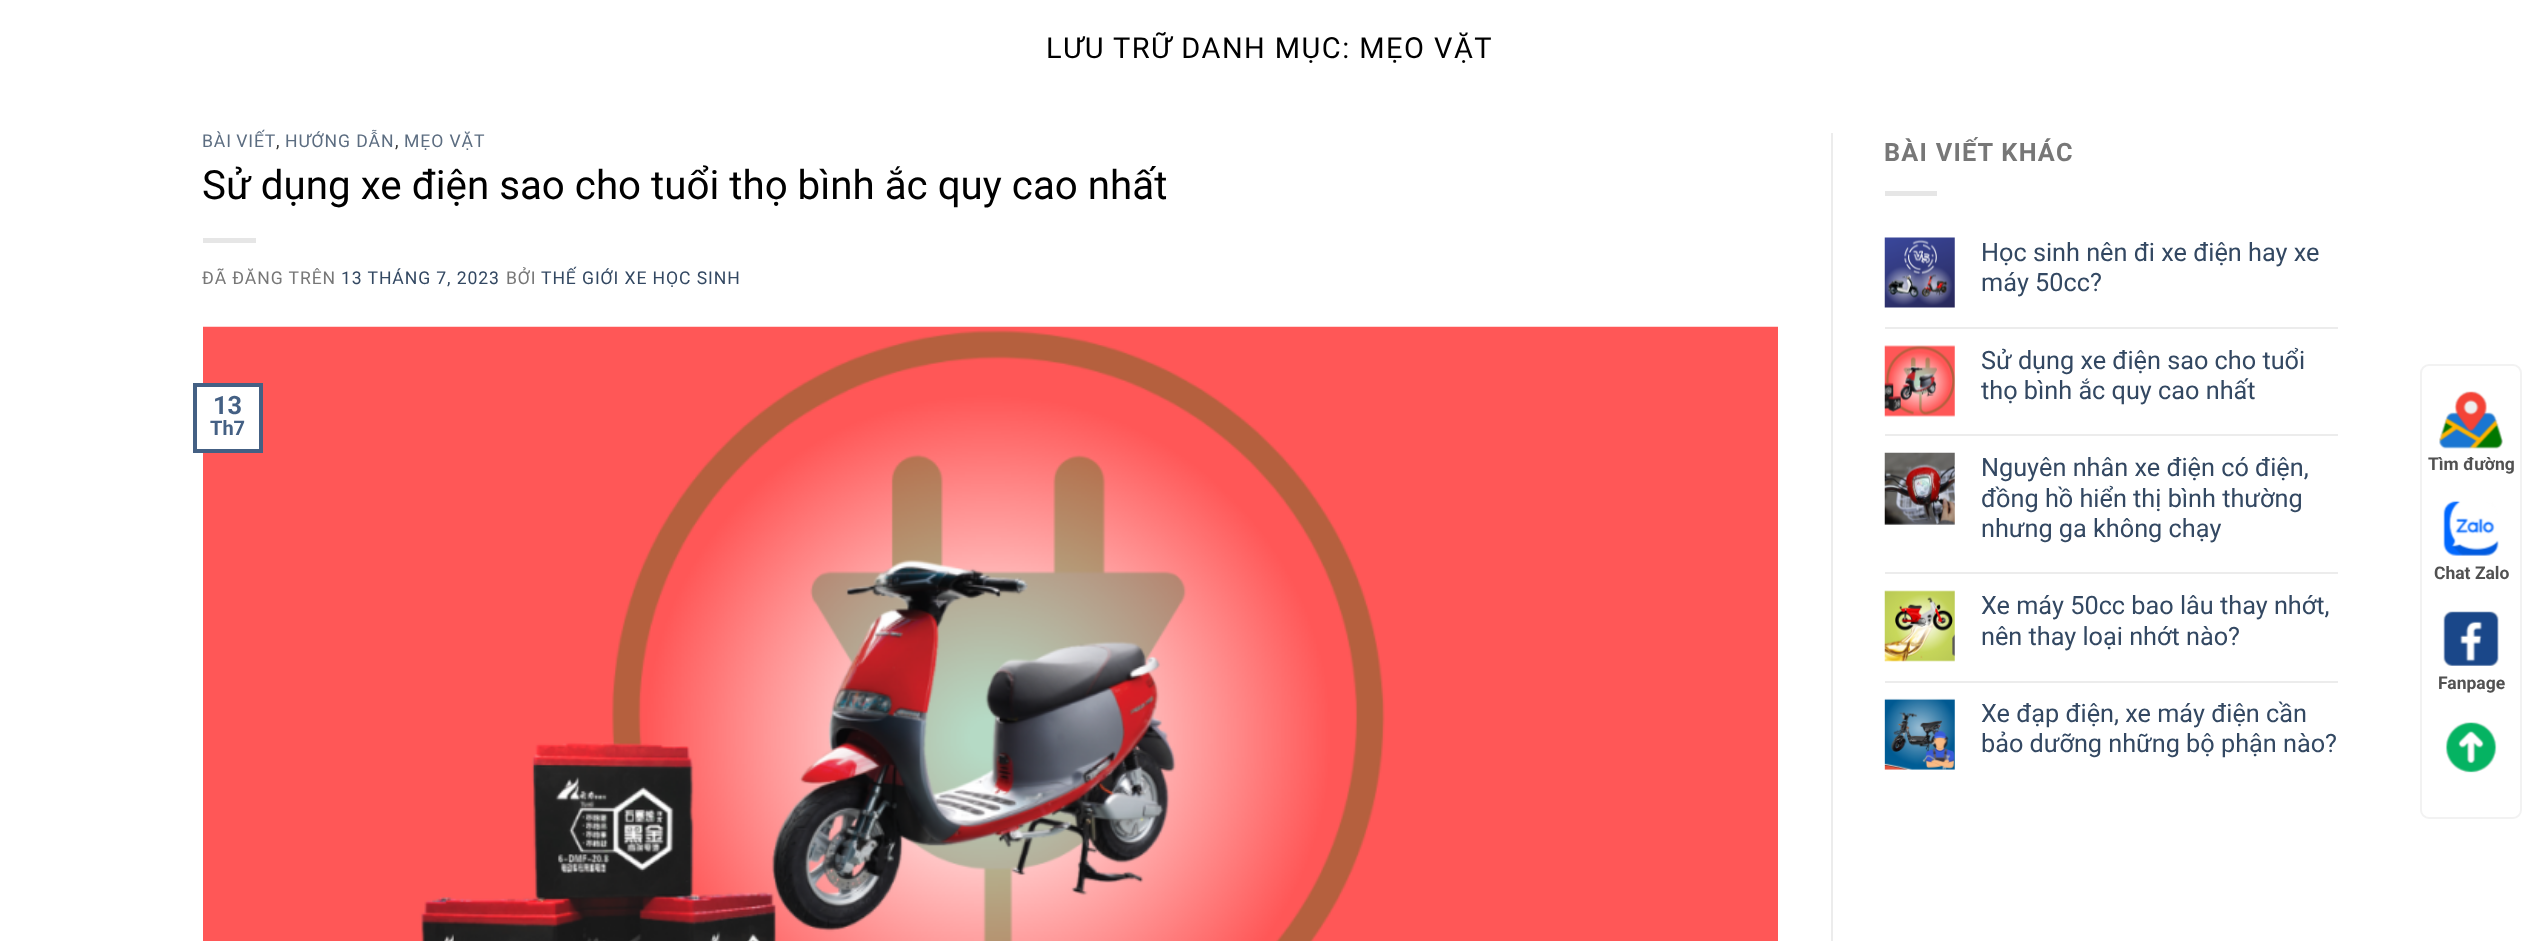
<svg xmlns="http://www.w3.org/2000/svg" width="2538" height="941">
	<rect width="100%" height="100%" fill="#FFFFFF" />
	<text x="1046" y="58" font-family="Roboto" font-size="29" letter-spacing="1.45" fill="#000000">LƯU TRỮ DANH MỤC: MẸO VẶT</text>
	<text x="202" y="147" word-spacing="-1" font-family="Roboto" font-size="17.6" letter-spacing="0.9" fill="#5C6D81">BÀI VIẾT</text>
	<text x="276" y="147" font-family="Roboto" font-size="17.6" letter-spacing="0.9" fill="#333333">,</text>
	<text x="285" y="147" font-family="Roboto" font-size="17.6" letter-spacing="0.9" fill="#5C6D81">HƯỚNG DẪN</text>
	<text x="395" y="147" font-family="Roboto" font-size="17.6" letter-spacing="0.9" fill="#333333">,</text>
	<text x="404" y="147" font-family="Roboto" font-size="17.6" letter-spacing="0.9" fill="#5C6D81">MẸO VẶT</text>
	<text x="202" y="199" font-family="Roboto" font-size="40.3" fill="#000000">Sử dụng xe điện sao cho tuổi thọ bình ắc quy cao nhất</text>
	<rect x="203" y="238" width="53" height="5" fill="#E6E6E6" />
	<text x="202" y="284" font-family="Roboto" font-size="17.6" letter-spacing="0.9" fill="#777777">ĐÃ ĐĂNG TRÊN</text>
	<text x="341" y="284" font-family="Roboto" font-size="17.6" letter-spacing="0.9" fill="#334862">13 THÁNG 7, 2023</text>
	<text x="506" y="284" font-family="Roboto" font-size="17.6" letter-spacing="0.9" fill="#777777">BỞI</text>
	<text x="541" y="284" font-family="Roboto" font-size="17.6" letter-spacing="0.9" fill="#334862">THẾ GIỚI XE HỌC SINH</text>
	<image x="203" y="326" width="1575" height="615" href="assets/img1.png" />
	<rect x="203" y="387" width="56" height="62" fill="#FFFFFF" />
	<rect x="195" y="385" width="66" height="66" fill="none" stroke="#446084" stroke-width="4" />
	<text x="213" y="414" font-family="Roboto" font-size="25.25" font-weight="700" fill="#446084">13</text>
	<text x="210" y="435" font-family="Roboto" font-size="20" font-weight="700" fill="#446084">Th7</text>
	<rect x="1831" y="133" width="2" height="808" fill="#ECECEC" />
	<text x="1884" y="161" font-family="Roboto" font-size="25.25" font-weight="700" letter-spacing="1.25" fill="#777777">BÀI VIẾT KHÁC</text>
	<rect x="1885" y="191" width="52" height="5" fill="#E6E6E6" />
	<image x="1884" y="237" width="71" height="71" href="assets/img2.png" />
	<g font-family="Roboto" font-size="25.25" fill="#334862">
		<text x="1981" y="261">Học sinh nên đi xe điện hay xe</text>
		<text x="1981" y="291">máy 50cc?</text>
	</g>
	<rect x="1885" y="327" width="453" height="2" fill="#ECECEC" />
	<image x="1884" y="345" width="71" height="72" href="assets/img3.png" />
	<g font-family="Roboto" font-size="25.25" fill="#334862">
		<text x="1981" y="369">Sử dụng xe điện sao cho tuổi</text>
		<text x="1981" y="399">thọ bình ắc quy cao nhất</text>
	</g>
	<rect x="1885" y="434" width="453" height="2" fill="#ECECEC" />
	<image x="1884" y="452" width="71" height="73" href="assets/img4.png" />
	<g font-family="Roboto" font-size="25.25" fill="#334862">
		<text x="1981" y="476">Nguyên nhân xe điện có điện,</text>
		<text x="1981" y="507">đồng hồ hiển thị bình thường</text>
		<text x="1981" y="537">nhưng ga không chạy</text>
	</g>
	<rect x="1885" y="572" width="453" height="2" fill="#ECECEC" />
	<image x="1884" y="590" width="71" height="72" href="assets/img5.png" />
	<g font-family="Roboto" font-size="25.25" fill="#334862">
		<text x="1981" y="614">Xe máy 50cc bao lâu thay nhớt,</text>
		<text x="1981" y="645">nên thay loại nhớt nào?</text>
	</g>
	<rect x="1885" y="681" width="453" height="2" fill="#ECECEC" />
	<image x="1884" y="698" width="71" height="72" href="assets/img6.png" />
	<g font-family="Roboto" font-size="25.25" fill="#334862">
		<text x="1981" y="722">Xe đạp điện, xe máy điện cần</text>
		<text x="1981" y="752">bảo dưỡng những bộ phận nào?</text>
	</g>
	<rect x="2421" y="365" width="100" height="453" rx="8" fill="none" stroke="#F2F2F2" stroke-width="2" />
	<image x="2439" y="391" width="64" height="58" href="assets/img7.png" />
	<text x="2428" y="470" font-family="Roboto" font-size="17.5" font-weight="700" fill="#515151">Tìm đường</text>
	<image x="2443" y="500" width="56" height="56" href="assets/img8.png" />
	<text x="2434" y="579" font-family="Roboto" font-size="17.5" font-weight="700" fill="#515151">Chat Zalo</text>
	<image x="2443" y="611" width="56" height="55" href="assets/img9.png" />
	<text x="2438" y="689" font-family="Roboto" font-size="17.5" font-weight="700" fill="#515151">Fanpage</text>
	<image x="2445" y="722" width="52" height="51" href="assets/img10.png" />
</svg>
